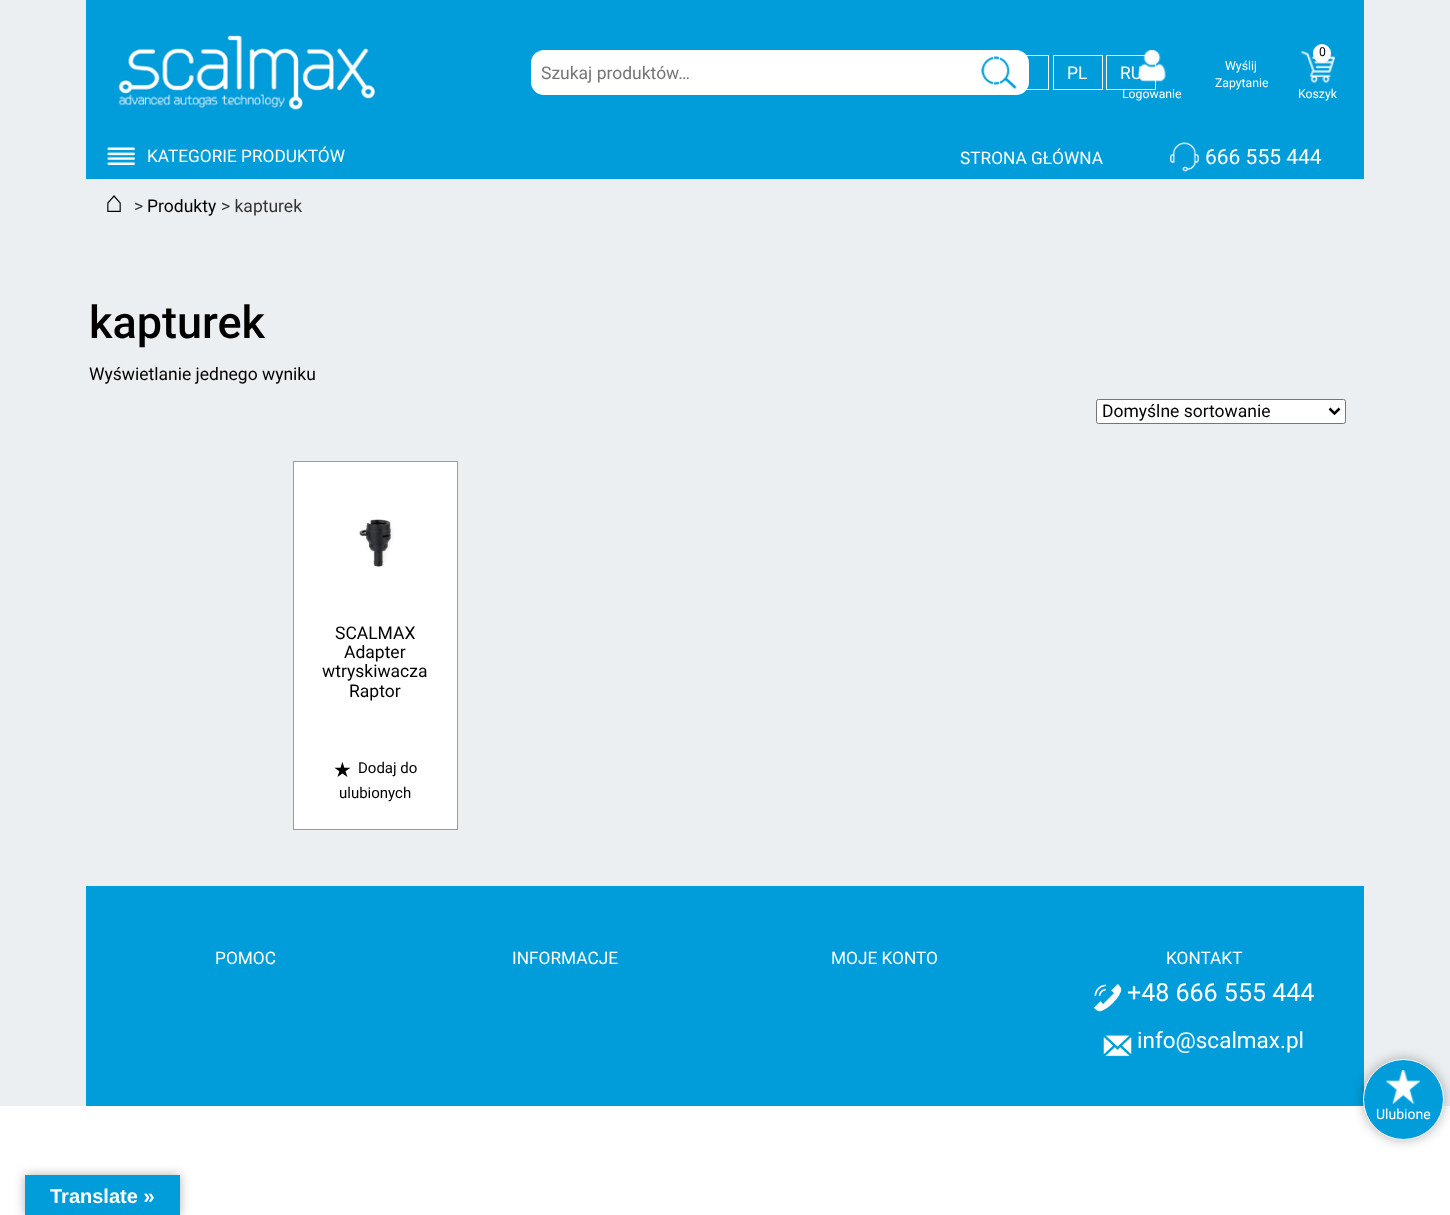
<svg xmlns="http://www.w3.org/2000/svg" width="1450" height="1215">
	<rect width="100%" height="100%" fill="#FFFFFF" />
	<rect x="0" y="0" width="1450" height="1106" fill="#ECEFF1" />
	<rect x="86" y="0" width="1278" height="179" fill="#009DDA" />
	<image x="118" y="35" width="258" height="75" href="assets/img1.png" />
	<rect x="531" y="50" width="463" height="45" rx="13" fill="#FFFFFF" />
	<text x="541" y="79" font-family="Roboto" font-size="17.5" fill="#757575">Szukaj produktów…</text>
	<rect x="969" y="50" width="60" height="45" rx="13" fill="#FFFFFF" />
	<image x="981" y="56" width="36" height="33" href="assets/img2.png" />
	<rect x="944.5" y="55.5" width="49" height="34" fill="none" stroke="#FFFFFF" />
	<rect x="999.5" y="55.5" width="49" height="34" fill="none" stroke="#FFFFFF" />
	<rect x="1053.5" y="55.5" width="49" height="34" fill="none" stroke="#FFFFFF" />
	<text x="1067" y="79" font-family="Roboto" font-size="17.5" fill="#FFFFFF">PL</text>
	<rect x="1106.5" y="55.5" width="49" height="34" fill="none" stroke="#FFFFFF" />
	<text x="1120" y="79" font-family="Roboto" font-size="17.5" fill="#FFFFFF">RU</text>
	<g font-family="Roboto" font-size="12.25" fill="#FFFFFF">
		<text x="1225" y="70">Wyślij</text>
		<text x="1215" y="87">Zapytanie</text>
	</g>
	<image x="1301" y="51" width="34" height="32" href="assets/img3.png" />
	<rect x="1313" y="44" width="18" height="19" rx="9" fill="#FFFFFF" />
	<text x="1319" y="56" font-family="Roboto" font-size="12.25" fill="#000000">0</text>
	<text x="1298" y="98" font-family="Roboto" font-size="12.25" fill="#FFFFFF">Koszyk</text>
	<image x="1138" y="50" width="28" height="32" href="assets/img4.png" />
	<text x="1122" y="98" font-family="Roboto" font-size="12.25" fill="#FFFFFF">Logowanie</text>
	<image x="107" y="147" width="28" height="18" href="assets/img5.png" />
	<g font-family="Roboto" font-size="17.25" fill="#FFFFFF">
		<text x="147" y="162">KATEGORIE PRODUKTÓW</text>
		<text x="960" y="164">STRONA GŁÓWNA</text>
	</g>
	<image x="1170" y="142" width="29" height="30" href="assets/img6.png" />
	<text x="1205" y="164" font-family="Roboto" font-size="21" fill="#FFFFFF">666 555 444</text>
	<text x="105" y="212" font-family="Liberation Serif" font-size="30" fill="#000000">⌂</text>
	<text x="134" y="212" font-family="Roboto" font-size="17.5" fill="#333333">&gt;</text>
	<text x="147" y="212" font-family="Roboto" font-size="17.5" fill="#000000">Produkty</text>
	<text x="221" y="212" font-family="Roboto" font-size="17.5" fill="#333333">&gt; kapturek</text>
	<text x="89" y="338" font-family="Roboto" font-size="45" font-weight="500" fill="#000000">kapturek</text>
	<text x="89" y="380" font-family="Roboto" font-size="17.5" fill="#000000">Wyświetlanie jednego wyniku</text>
	<rect x="1096.5" y="399.5" width="249" height="24" rx="2" fill="#FFFFFF" stroke="#767676" />
	<path d="M1329.5 408.5L1334.5 413.5L1339.5 408.5" fill="none" stroke="#000000" stroke-width="2.5" />
	<text x="1102" y="417" font-family="Roboto" font-size="17.5" fill="#000000">Domyślne sortowanie</text>
	<rect x="293.5" y="461.5" width="164" height="368" fill="#FFFFFF" stroke="#9B9B9B" />
	<image x="359" y="519" width="35" height="49" href="assets/img7.png" />
	<g font-family="Roboto" font-size="17.5" fill="#000000">
		<text x="335" y="639">SCALMAX</text>
		<text x="344" y="658">Adapter</text>
		<text x="322" y="677">wtryskiwacza</text>
		<text x="349" y="697">Raptor</text>
	</g>
	<text x="333" y="777" font-family="DejaVu Sans" font-size="21" fill="#000000">★</text>
	<g font-family="Roboto" font-size="15" fill="#000000">
		<text x="358" y="773">Dodaj do</text>
		<text x="339" y="798">ulubionych</text>
	</g>
	<rect x="86" y="886" width="1278" height="220" fill="#009DDA" />
	<g font-family="Roboto" font-size="17.25" fill="#FFFFFF">
		<text x="215" y="964">POMOC</text>
		<text x="512" y="964">INFORMACJE</text>
		<text x="831" y="964">MOJE KONTO</text>
		<text x="1166" y="964">KONTAKT</text>
	</g>
	<image x="1093" y="983" width="29" height="29" href="assets/img8.png" />
	<text x="1127" y="1001" font-family="Roboto" font-size="25" fill="#FFFFFF">+48 666 555 444</text>
	<image x="1103" y="1035" width="29" height="22" href="assets/img9.png" />
	<text x="1137" y="1048" font-family="Roboto" font-size="22.5" fill="#FFFFFF">info@scalmax.pl</text>
	<rect x="1363" y="1059" width="81" height="81" rx="40.5" fill="#000000" fill-opacity="0.3" filter="blur(6px)" />
	<circle cx="1403.5" cy="1099.5" r="40" fill="#009DDA" stroke="#FFFFFF" />
	<image x="1386" y="1070" width="34" height="34" href="assets/img10.png" />
	<text x="1376" y="1119" font-family="Roboto" font-size="14" fill="#FFFFFF">Ulubione</text>
	<rect x="25" y="1175" width="155" height="40" fill="#000000" fill-opacity="0.3" filter="blur(5.5px)" />
	<rect x="25" y="1175" width="155" height="40" fill="#009DDA" />
	<text x="50" y="1203" font-family="Liberation Sans" font-size="20" font-weight="700" fill="#FFFFFF">Translate »</text>
</svg>
